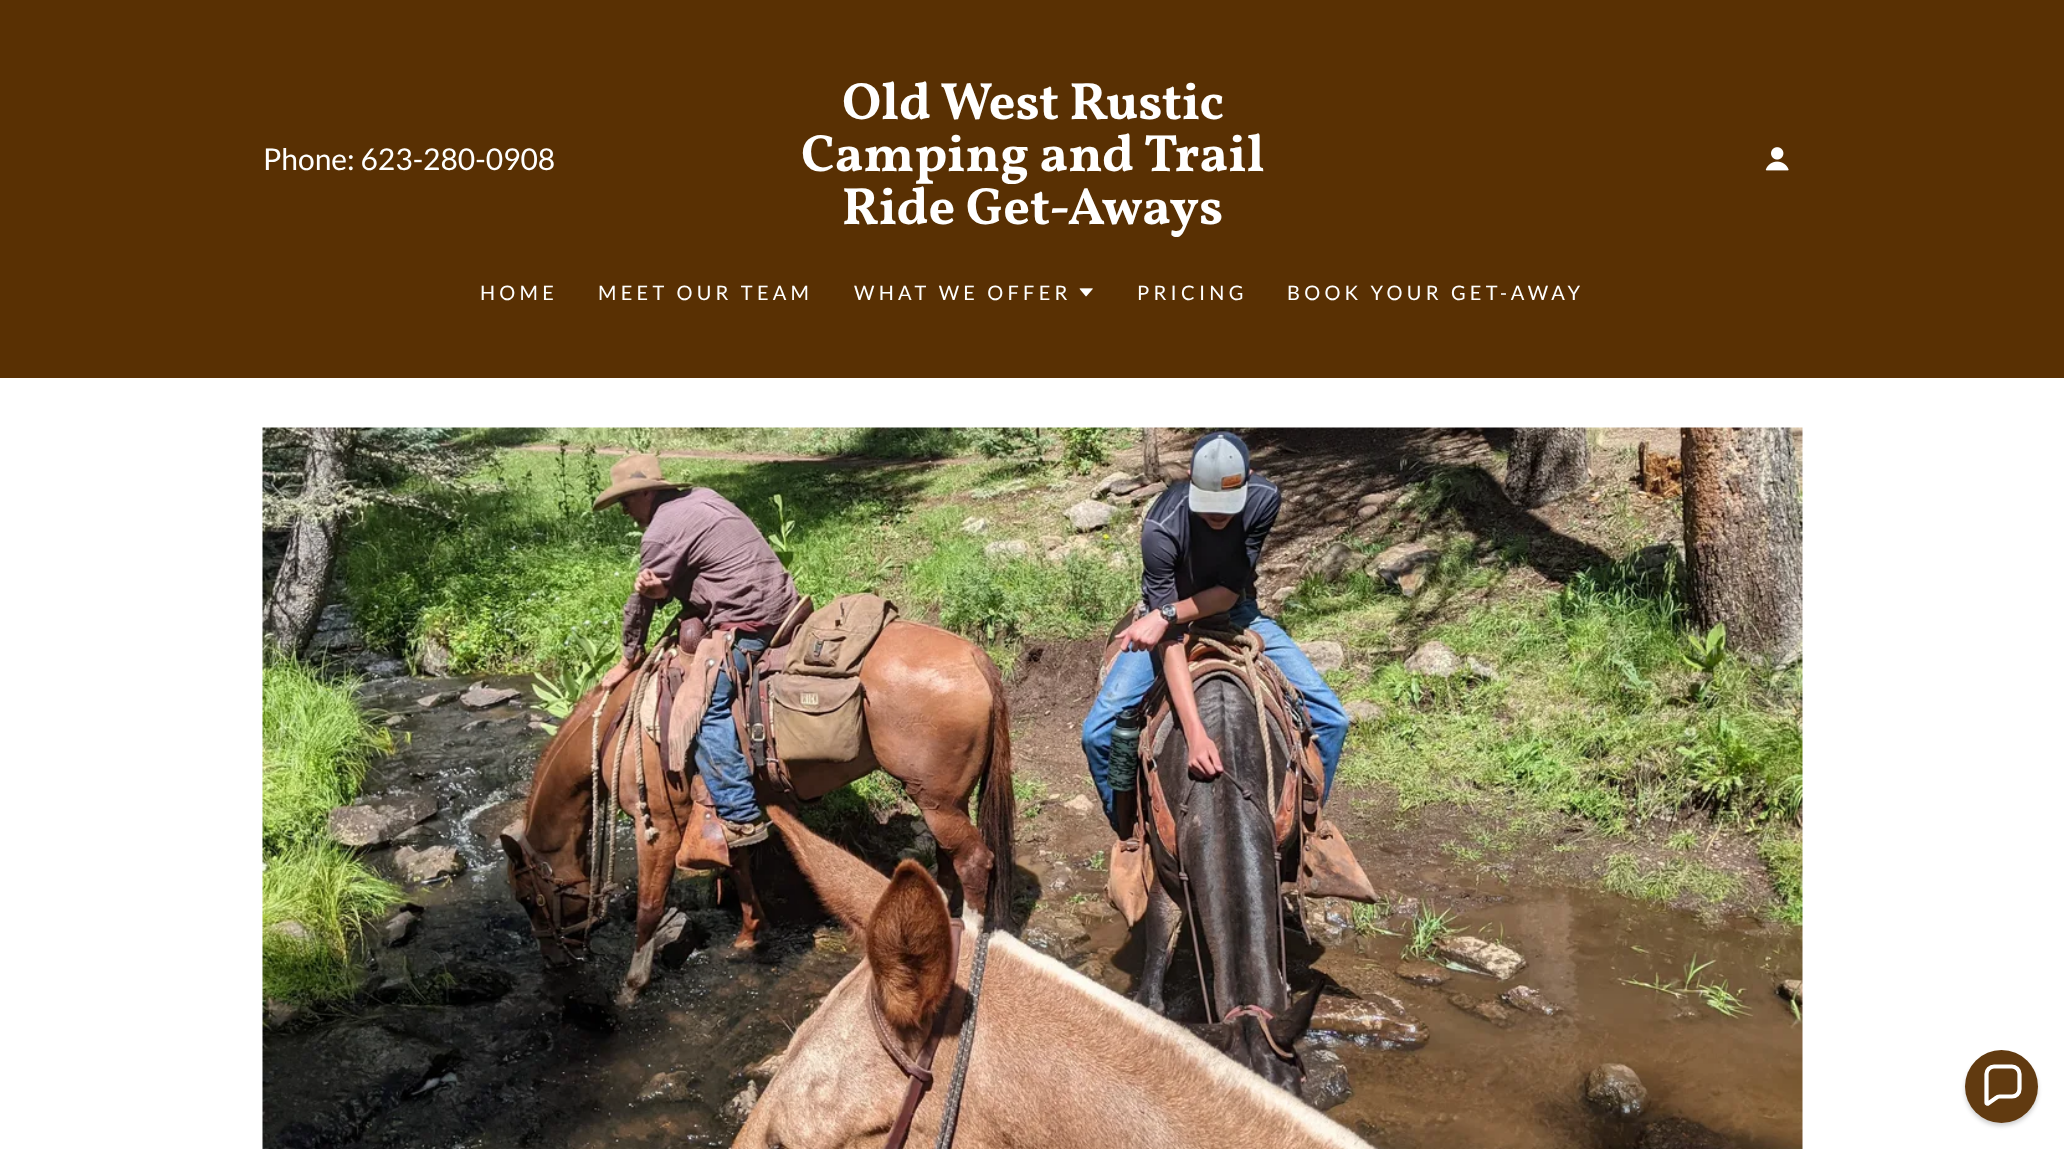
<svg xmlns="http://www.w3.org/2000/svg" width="2064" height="1149">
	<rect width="100%" height="100%" fill="#593003" />
	<text x="263" y="170" font-family="Lato" font-size="30" fill="#FFFFFF">Phone: 623-280-0908</text>
	<g font-family="Vollkorn" font-size="52.5" font-weight="700" fill="#FFFFFF">
		<text x="842" y="119">Old West Rustic</text>
		<text x="801" y="171">Camping and Trail</text>
		<text x="842" y="224">Ride Get-Aways</text>
	</g>
	<image x="1765" y="147" width="24" height="24" href="assets/img1.png" />
	<g font-family="Lato" font-size="20" letter-spacing="4.25" fill="#FFFFFF">
		<text x="480" y="300">HOME</text>
		<text x="598" y="300">MEET OUR TEAM</text>
		<text x="854" y="300">WHAT WE OFFER</text>
	</g>
	<image x="1079" y="288" width="14" height="9" href="assets/img2.png" />
	<g font-family="Lato" font-size="20" letter-spacing="4.25" fill="#FFFFFF">
		<text x="1137" y="300">PRICING</text>
		<text x="1287" y="300">BOOK YOUR GET-AWAY</text>
	</g>
	<rect x="0" y="378" width="2064" height="771" fill="#FFFFFF" />
	<image x="262" y="427" width="1541" height="722" href="assets/img3.png" />
	<rect x="1965" y="1054" width="73" height="72" rx="36" fill="#0D0D0D" fill-opacity="0.2" filter="blur(2px)" />
	<circle cx="2001.5" cy="1086.5" r="36.5" fill="#613A10" />
	<path d="M2012 1066.5H1994C1990 1066.5 1986.5 1070 1986.5 1074V1103C1986.5 1103.5 1987.5 1104 1988 1103.5L1996 1098C1997 1097 1998.5 1096.5 1999.5 1096.5H2012C2016 1096.5 2019.5 1093.5 2019.5 1089V1074C2019.5 1070 2016 1066.5 2012 1066.5Z" fill="none" stroke="#FFFFFF" stroke-width="4.2" />
</svg>
